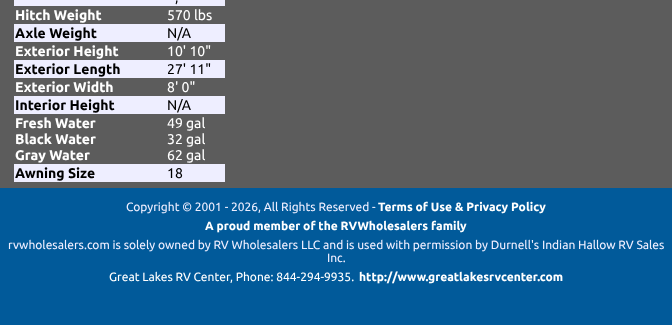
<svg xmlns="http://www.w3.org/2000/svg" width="672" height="327">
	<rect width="100%" height="100%" fill="#FFFFFF" />
	<rect x="0" y="0" width="672" height="188" fill="#5C5C5C" />
	<rect x="14" y="0" width="211" height="6" fill="#EEEEFF" />
	<text x="175" y="2" font-family="Ubuntu" font-size="14" fill="#000000">,</text>
	<text x="15" y="20" font-family="Ubuntu" font-size="14" font-weight="700" fill="#FFFFFF">Hitch Weight</text>
	<text x="167" y="20" font-family="Ubuntu" font-size="14" fill="#FFFFFF">570 lbs</text>
	<rect x="14" y="24" width="211" height="18" fill="#EEEEFF" />
	<text x="15" y="38" font-family="Ubuntu" font-size="14" font-weight="700" fill="#000000">Axle Weight</text>
	<text x="167" y="38" font-family="Ubuntu" font-size="14" fill="#000000">N/A</text>
	<text x="15" y="56" font-family="Ubuntu" font-size="14" font-weight="700" fill="#FFFFFF">Exterior Height</text>
	<text x="167" y="56" font-family="Ubuntu" font-size="14" fill="#FFFFFF">10' 10"</text>
	<rect x="14" y="60" width="211" height="18" fill="#EEEEFF" />
	<text x="15" y="74" font-family="Ubuntu" font-size="14" font-weight="700" fill="#000000">Exterior Length</text>
	<text x="167" y="74" font-family="Ubuntu" font-size="14" fill="#000000">27' 11"</text>
	<text x="15" y="92" font-family="Ubuntu" font-size="14" font-weight="700" fill="#FFFFFF">Exterior Width</text>
	<text x="167" y="92" font-family="Ubuntu" font-size="14" fill="#FFFFFF">8' 0"</text>
	<rect x="14" y="96" width="211" height="18" fill="#EEEEFF" />
	<text x="15" y="110" font-family="Ubuntu" font-size="14" font-weight="700" fill="#000000">Interior Height</text>
	<text x="167" y="110" font-family="Ubuntu" font-size="14" fill="#000000">N/A</text>
	<g font-family="Ubuntu" font-size="14" font-weight="700" fill="#FFFFFF">
		<text x="15" y="128">Fresh Water</text>
		<text x="15" y="144">Black Water</text>
		<text x="15" y="160">Gray Water</text>
	</g>
	<g font-family="Ubuntu" font-size="14" fill="#FFFFFF">
		<text x="167" y="128">49 gal</text>
		<text x="167" y="144">32 gal</text>
		<text x="167" y="160">62 gal</text>
	</g>
	<rect x="14" y="164" width="211" height="18" fill="#EEEEFF" />
	<text x="15" y="178" font-family="Ubuntu" font-size="14" font-weight="700" fill="#000000">Awning Size</text>
	<text x="167" y="178" font-family="Ubuntu" font-size="14" fill="#000000">18</text>
	<rect x="0" y="188" width="672" height="137" fill="#015A9A" />
	<text x="126" y="211" font-family="Ubuntu" font-size="12" fill="#EEEEFF">Copyright © 2001 - 2026, All Rights Reserved -</text>
	<g font-family="Ubuntu" font-size="12" font-weight="700" fill="#FFFFFF">
		<text x="378" y="211">Terms of Use &amp; Privacy Policy</text>
		<text x="205" y="230">A proud member of the RVWholesalers family</text>
	</g>
	<g font-family="Ubuntu" font-size="12" fill="#EEEEFF">
		<text x="8" y="249">rvwholesalers.com is solely owned by RV Wholesalers LLC and is used with permission by Durnell's Indian Hallow RV Sales</text>
		<text x="327" y="262">Inc.</text>
	</g>
	<g font-family="Ubuntu" font-size="12" fill="#FFFFFF">
		<text x="109" y="281">Great Lakes RV Center</text>
		<text x="230" y="281">, Phone: 844-294-9935.</text>
	</g>
	<text x="359" y="281" font-family="Ubuntu" font-size="12" font-weight="700" fill="#FFFFFF">http://www.greatlakesrvcenter.com</text>
</svg>
